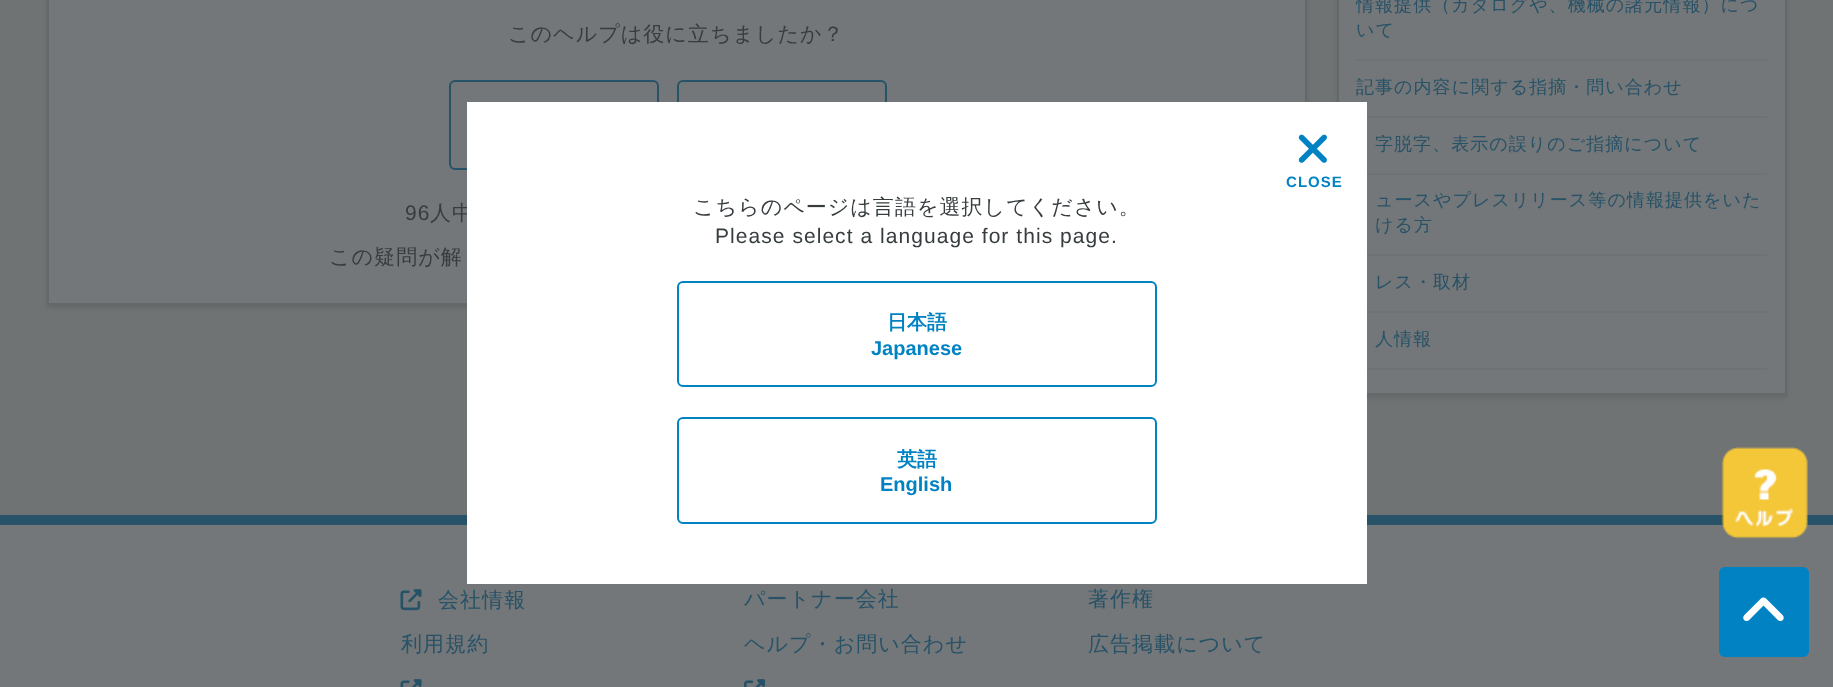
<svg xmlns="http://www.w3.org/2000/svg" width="1833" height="687">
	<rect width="100%" height="100%" fill="#737779" />
	<rect x="0" y="0" width="1833" height="515" fill="#6F7374" />
	<rect x="47" y="-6" width="1260" height="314" fill="#646869" filter="blur(2px)" />
	<rect x="48" y="-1" width="1258" height="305" fill="#737779" stroke="#646869" stroke-width="2" />
	<text x="508" y="41" font-family="WenQuanYi Zen Hei" font-size="21" font-weight="500" letter-spacing="1.05" fill="#373D3F">このヘルプは役に立ちましたか？</text>
	<rect x="450" y="81" width="208" height="88" rx="5" fill="none" stroke="#275267" stroke-width="2" />
	<rect x="678" y="81" width="208" height="88" rx="5" fill="none" stroke="#275267" stroke-width="2" />
	<text x="405" y="220" font-family="Liberation Sans" font-size="21" letter-spacing="1.05" fill="#373D3F">96</text>
	<g font-family="WenQuanYi Zen Hei" font-size="21" font-weight="500" letter-spacing="1.05" fill="#373D3F">
		<text x="430" y="220">人中</text>
		<text x="329" y="264">この疑問が解</text>
	</g>
	<rect x="1337" y="-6" width="450" height="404" fill="#646869" filter="blur(2px)" />
	<rect x="1338" y="-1" width="448" height="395" fill="#737779" stroke="#646869" stroke-width="2" />
	<g font-family="WenQuanYi Zen Hei" font-size="18" font-weight="500" letter-spacing="1.05" fill="#275267">
		<text x="1356" y="11">情報提供（カタログや、機械の諸元情報）につ</text>
		<text x="1356" y="36">いて</text>
	</g>
	<rect x="1356" y="59" width="411" height="2" fill="#6D7274" />
	<text x="1356" y="93" font-family="WenQuanYi Zen Hei" font-size="18" font-weight="500" letter-spacing="1.05" fill="#275267">記事の内容に関する指摘・問い合わせ</text>
	<rect x="1367" y="116" width="400" height="2" fill="#6D7274" />
	<text x="1375" y="150" font-family="WenQuanYi Zen Hei" font-size="18" font-weight="500" letter-spacing="1.05" fill="#275267">字脱字、表示の誤りのご指摘について</text>
	<rect x="1367" y="173" width="400" height="2" fill="#6D7274" />
	<g font-family="WenQuanYi Zen Hei" font-size="18" font-weight="500" letter-spacing="1.05" fill="#275267">
		<text x="1375" y="206">ュースやプレスリリース等の情報提供をいた</text>
		<text x="1375" y="231">ける方</text>
	</g>
	<rect x="1367" y="254" width="400" height="2" fill="#6D7274" />
	<text x="1375" y="288" font-family="WenQuanYi Zen Hei" font-size="18" font-weight="500" letter-spacing="1.05" fill="#275267">レス・取材</text>
	<rect x="1367" y="311" width="400" height="2" fill="#6D7274" />
	<rect x="1367" y="368" width="400" height="2" fill="#6D7274" />
	<text x="1375" y="345" font-family="WenQuanYi Zen Hei" font-size="18" font-weight="500" letter-spacing="1.05" fill="#275267">人情報</text>
	<rect x="0" y="515" width="1833" height="10" fill="#275267" />
	<rect x="467" y="102" width="900" height="482" fill="#FFFFFF" />
	<image x="1298" y="134" width="29" height="29" href="assets/img1.png" />
	<text x="1286" y="187" font-family="Liberation Sans" font-size="15" font-weight="700" letter-spacing="1.05" fill="#0082C3">CLOSE</text>
	<text x="693" y="214" font-family="WenQuanYi Zen Hei" font-size="21" font-weight="500" letter-spacing="1.05" fill="#373D3F">こちらのページは言語を選択してください。</text>
	<text x="715" y="243" font-family="Liberation Sans" font-size="21" letter-spacing="1.05" fill="#373D3F">Please select a language for this page.</text>
	<rect x="678" y="282" width="478" height="104" rx="5" fill="none" stroke="#0082C3" stroke-width="2" />
	<text x="887" y="329" font-family="WenQuanYi Zen Hei" font-size="20" font-weight="700" fill="#0082C3">日本語</text>
	<text x="871" y="355" font-family="Liberation Sans" font-size="20" font-weight="700" fill="#0082C3">Japanese</text>
	<rect x="678" y="418" width="478" height="105" rx="5" fill="none" stroke="#0082C3" stroke-width="2" />
	<text x="897" y="466" font-family="WenQuanYi Zen Hei" font-size="20" font-weight="700" fill="#0082C3">英語</text>
	<text x="880" y="491" font-family="Liberation Sans" font-size="20" font-weight="700" fill="#0082C3">English</text>
	<image x="1721" y="447" width="87" height="92" href="assets/img2.png" />
	<image x="400" y="589" width="22" height="22" href="assets/img3.png" />
	<g font-family="WenQuanYi Zen Hei" font-size="21" font-weight="500" letter-spacing="1.05" fill="#275267">
		<text x="438" y="607">会社情報</text>
		<text x="744" y="606">パートナー会社</text>
		<text x="1088" y="606">著作権</text>
		<text x="401" y="651">利用規約</text>
		<text x="744" y="651">ヘルプ・お問い合わせ</text>
		<text x="1088" y="651">広告掲載について</text>
	</g>
	<image x="400" y="679" width="22" height="8" href="assets/img4.png" />
	<image x="744" y="679" width="21" height="8" href="assets/img5.png" />
	<rect x="1719" y="567" width="90" height="90" rx="6" fill="#0082C3" />
	<image x="1743" y="597" width="41" height="25" href="assets/img6.png" />
</svg>
